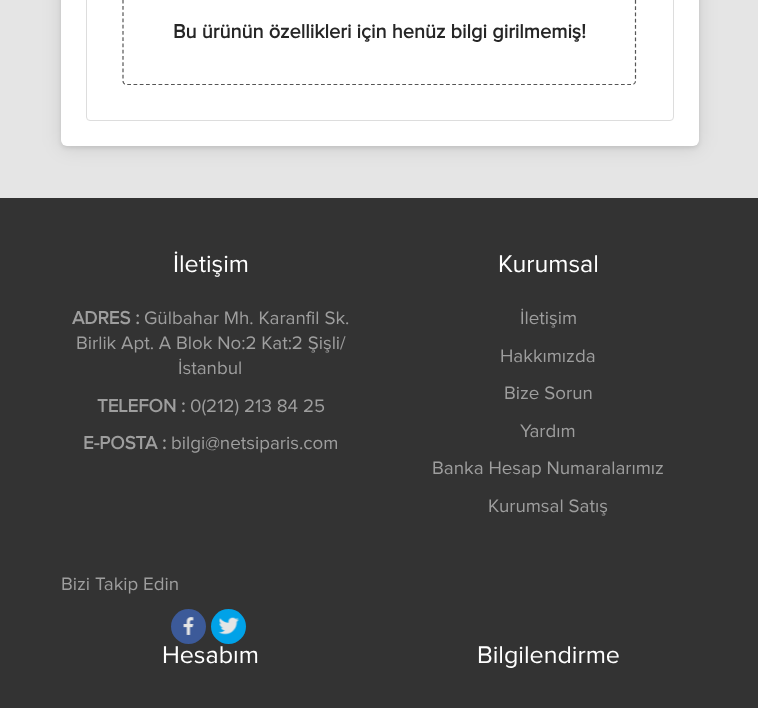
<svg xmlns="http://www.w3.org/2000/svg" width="758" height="708">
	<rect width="100%" height="100%" fill="#E5E5E5" />
	<rect x="61" y="-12" width="638" height="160" rx="6" fill="#000000" fill-opacity="0.1" filter="blur(2px)" />
	<rect x="61" y="-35" width="638" height="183" rx="6" fill="#000000" fill-opacity="0.1" filter="blur(9.5px)" />
	<rect x="61" y="-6" width="638" height="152" rx="6" fill="#FFFFFF" />
	<rect x="86.5" y="-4.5" width="587" height="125" rx="3.5" fill="none" stroke="#DDDDDD" />
	<path d="M126-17H632.5C634-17 635.5-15.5 635.5-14V81C635.5 83 634 84.5 632.5 84.5H126C124.5 84.5 123 83 123 81V-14C123-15.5 124.5-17 126-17Z" fill="none" stroke="#555555" stroke-width="1.2" stroke-dasharray="3.75 2.5" />
	<text x="173" y="38" font-family="Proxima Nova" font-size="20" font-weight="700" fill="#262626">Bu ürünün özellikleri için henüz bilgi girilmemiş!</text>
	<rect x="0" y="198" width="758" height="510" fill="#333333" />
	<text x="173" y="272" font-family="Proxima Nova" font-size="25" fill="#FFFFFF">İletişim</text>
	<text x="72" y="324" font-family="Proxima Nova" font-size="18.75" font-weight="700" fill="#9E9E9E">ADRES :</text>
	<g font-family="Proxima Nova" font-size="18.75" fill="#9E9E9E">
		<text x="144" y="324">Gülbahar Mh. Karanfil Sk.</text>
		<text x="76" y="349">Birlik Apt. A Blok No:2 Kat:2 Şişli/</text>
		<text x="178" y="374">İstanbul</text>
	</g>
	<text x="97" y="412" font-family="Proxima Nova" font-size="18.75" font-weight="700" fill="#9E9E9E">TELEFON :</text>
	<text x="190" y="412" font-family="Proxima Nova" font-size="18.75" fill="#9E9E9E">0(212) 213 84 25</text>
	<text x="83" y="449" font-family="Proxima Nova" font-size="18.75" font-weight="700" fill="#9E9E9E">E-POSTA :</text>
	<g font-family="Proxima Nova" font-size="18.75" fill="#9E9E9E">
		<text x="171" y="449">bilgi@netsiparis.com</text>
		<text x="61" y="590">Bizi Takip Edin</text>
	</g>
	<circle cx="188.5" cy="626.5" r="17.5" fill="#3C5A99" />
	<image x="183" y="617" width="11" height="18" href="assets/img1.png" />
	<circle cx="228.5" cy="626.5" r="17.5" fill="#00A2E8" />
	<image x="218" y="617" width="22" height="18" href="assets/img2.png" />
	<text x="498" y="272" font-family="Proxima Nova" font-size="25" fill="#FFFFFF">Kurumsal</text>
	<g font-family="Proxima Nova" font-size="18.75" fill="#9E9E9E">
		<text x="520" y="324">İletişim</text>
		<text x="500" y="362">Hakkımızda</text>
		<text x="504" y="399">Bize Sorun</text>
		<text x="520" y="437">Yardım</text>
		<text x="432" y="474">Banka Hesap Numaralarımız</text>
		<text x="488" y="512">Kurumsal Satış</text>
	</g>
	<g font-family="Proxima Nova" font-size="25" fill="#FFFFFF">
		<text x="162" y="663">Hesabım</text>
		<text x="477" y="663">Bilgilendirme</text>
	</g>
</svg>
